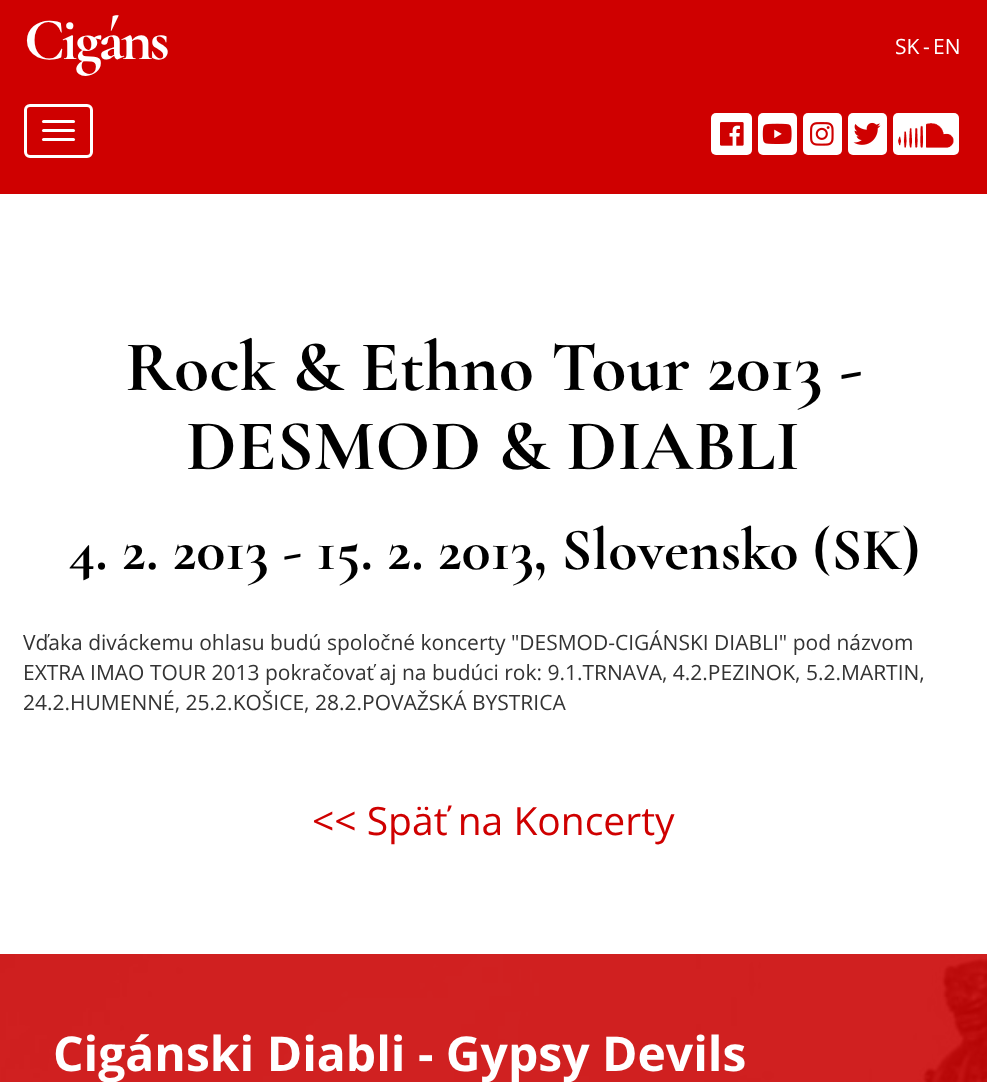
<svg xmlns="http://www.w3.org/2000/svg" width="987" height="1082">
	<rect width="100%" height="100%" fill="#FFFFFF" />
	<rect x="0" y="0" width="987" height="194" fill="#CF0000" />
	<text x="24" y="59" font-family="Cormorant Garamond" font-size="60" font-weight="300" letter-spacing="-3" fill="#FFFFFF">Cigáns</text>
	<g font-family="Open Sans" font-size="21" fill="#FFFFFF">
		<text x="895" y="54">SK</text>
		<text x="923" y="54">-</text>
		<text x="933" y="54">EN</text>
	</g>
	<rect x="25.5" y="105.5" width="66" height="51" rx="4.5" fill="none" stroke="#FFFFFF" stroke-width="3" />
	<rect x="42" y="120" width="33" height="3" rx="1.5" fill="#FFFFFF" />
	<rect x="42" y="129" width="33" height="3" rx="1.5" fill="#FFFFFF" />
	<rect x="42" y="138" width="33" height="3" rx="1.5" fill="#FFFFFF" />
	<rect x="711" y="113" width="41" height="42" rx="5" fill="#FFFFFF" />
	<image x="720" y="122" width="24" height="24" href="assets/img1.png" />
	<rect x="758" y="113" width="39" height="42" rx="5" fill="#FFFFFF" />
	<image x="762" y="123" width="30" height="21" href="assets/img2.png" />
	<rect x="803" y="113" width="39" height="42" rx="5" fill="#FFFFFF" />
	<image x="810" y="122" width="24" height="24" href="assets/img3.png" />
	<rect x="848" y="113" width="39" height="42" rx="5" fill="#FFFFFF" />
	<image x="853" y="122" width="28" height="23" href="assets/img4.png" />
	<rect x="893" y="113" width="66" height="42" rx="5" fill="#FFFFFF" />
	<image x="898" y="123" width="56" height="25" href="assets/img5.png" />
	<g font-family="Cormorant Garamond" font-size="72" font-weight="300" fill="#000000">
		<text x="125" y="390">Rock &amp; Ethno Tour 2013 -</text>
		<text x="186" y="469">DESMOD &amp; DIABLI</text>
	</g>
	<text x="68" y="569" font-family="Cormorant Garamond" font-size="60" font-weight="300" fill="#000000">4. 2. 2013 - 15. 2. 2013, Slovensko (SK)</text>
	<g font-family="Open Sans" font-size="21" fill="#333333">
		<text x="23" y="650">Vďaka diváckemu ohlasu budú spoločné koncerty "DESMOD-CIGÁNSKI DIABLI" pod názvom</text>
		<text x="23" y="680">EXTRA IMAO TOUR 2013 pokračovať aj na budúci rok: 9.1.TRNAVA, 4.2.PEZINOK, 5.2.MARTIN,</text>
		<text x="23" y="710">24.2.HUMENNÉ, 25.2.KOŠICE, 28.2.POVAŽSKÁ BYSTRICA</text>
	</g>
	<text x="312" y="835" font-family="Open Sans" font-size="39" fill="#CF0000">&lt;&lt; Späť na Koncerty</text>
	<image x="0" y="954" width="987" height="128" href="assets/img6.png" />
	<text x="53" y="1071" font-family="Open Sans" font-size="48" font-weight="700" fill="#FFFFFF">Cigánski Diabli - Gypsy Devils</text>
</svg>
